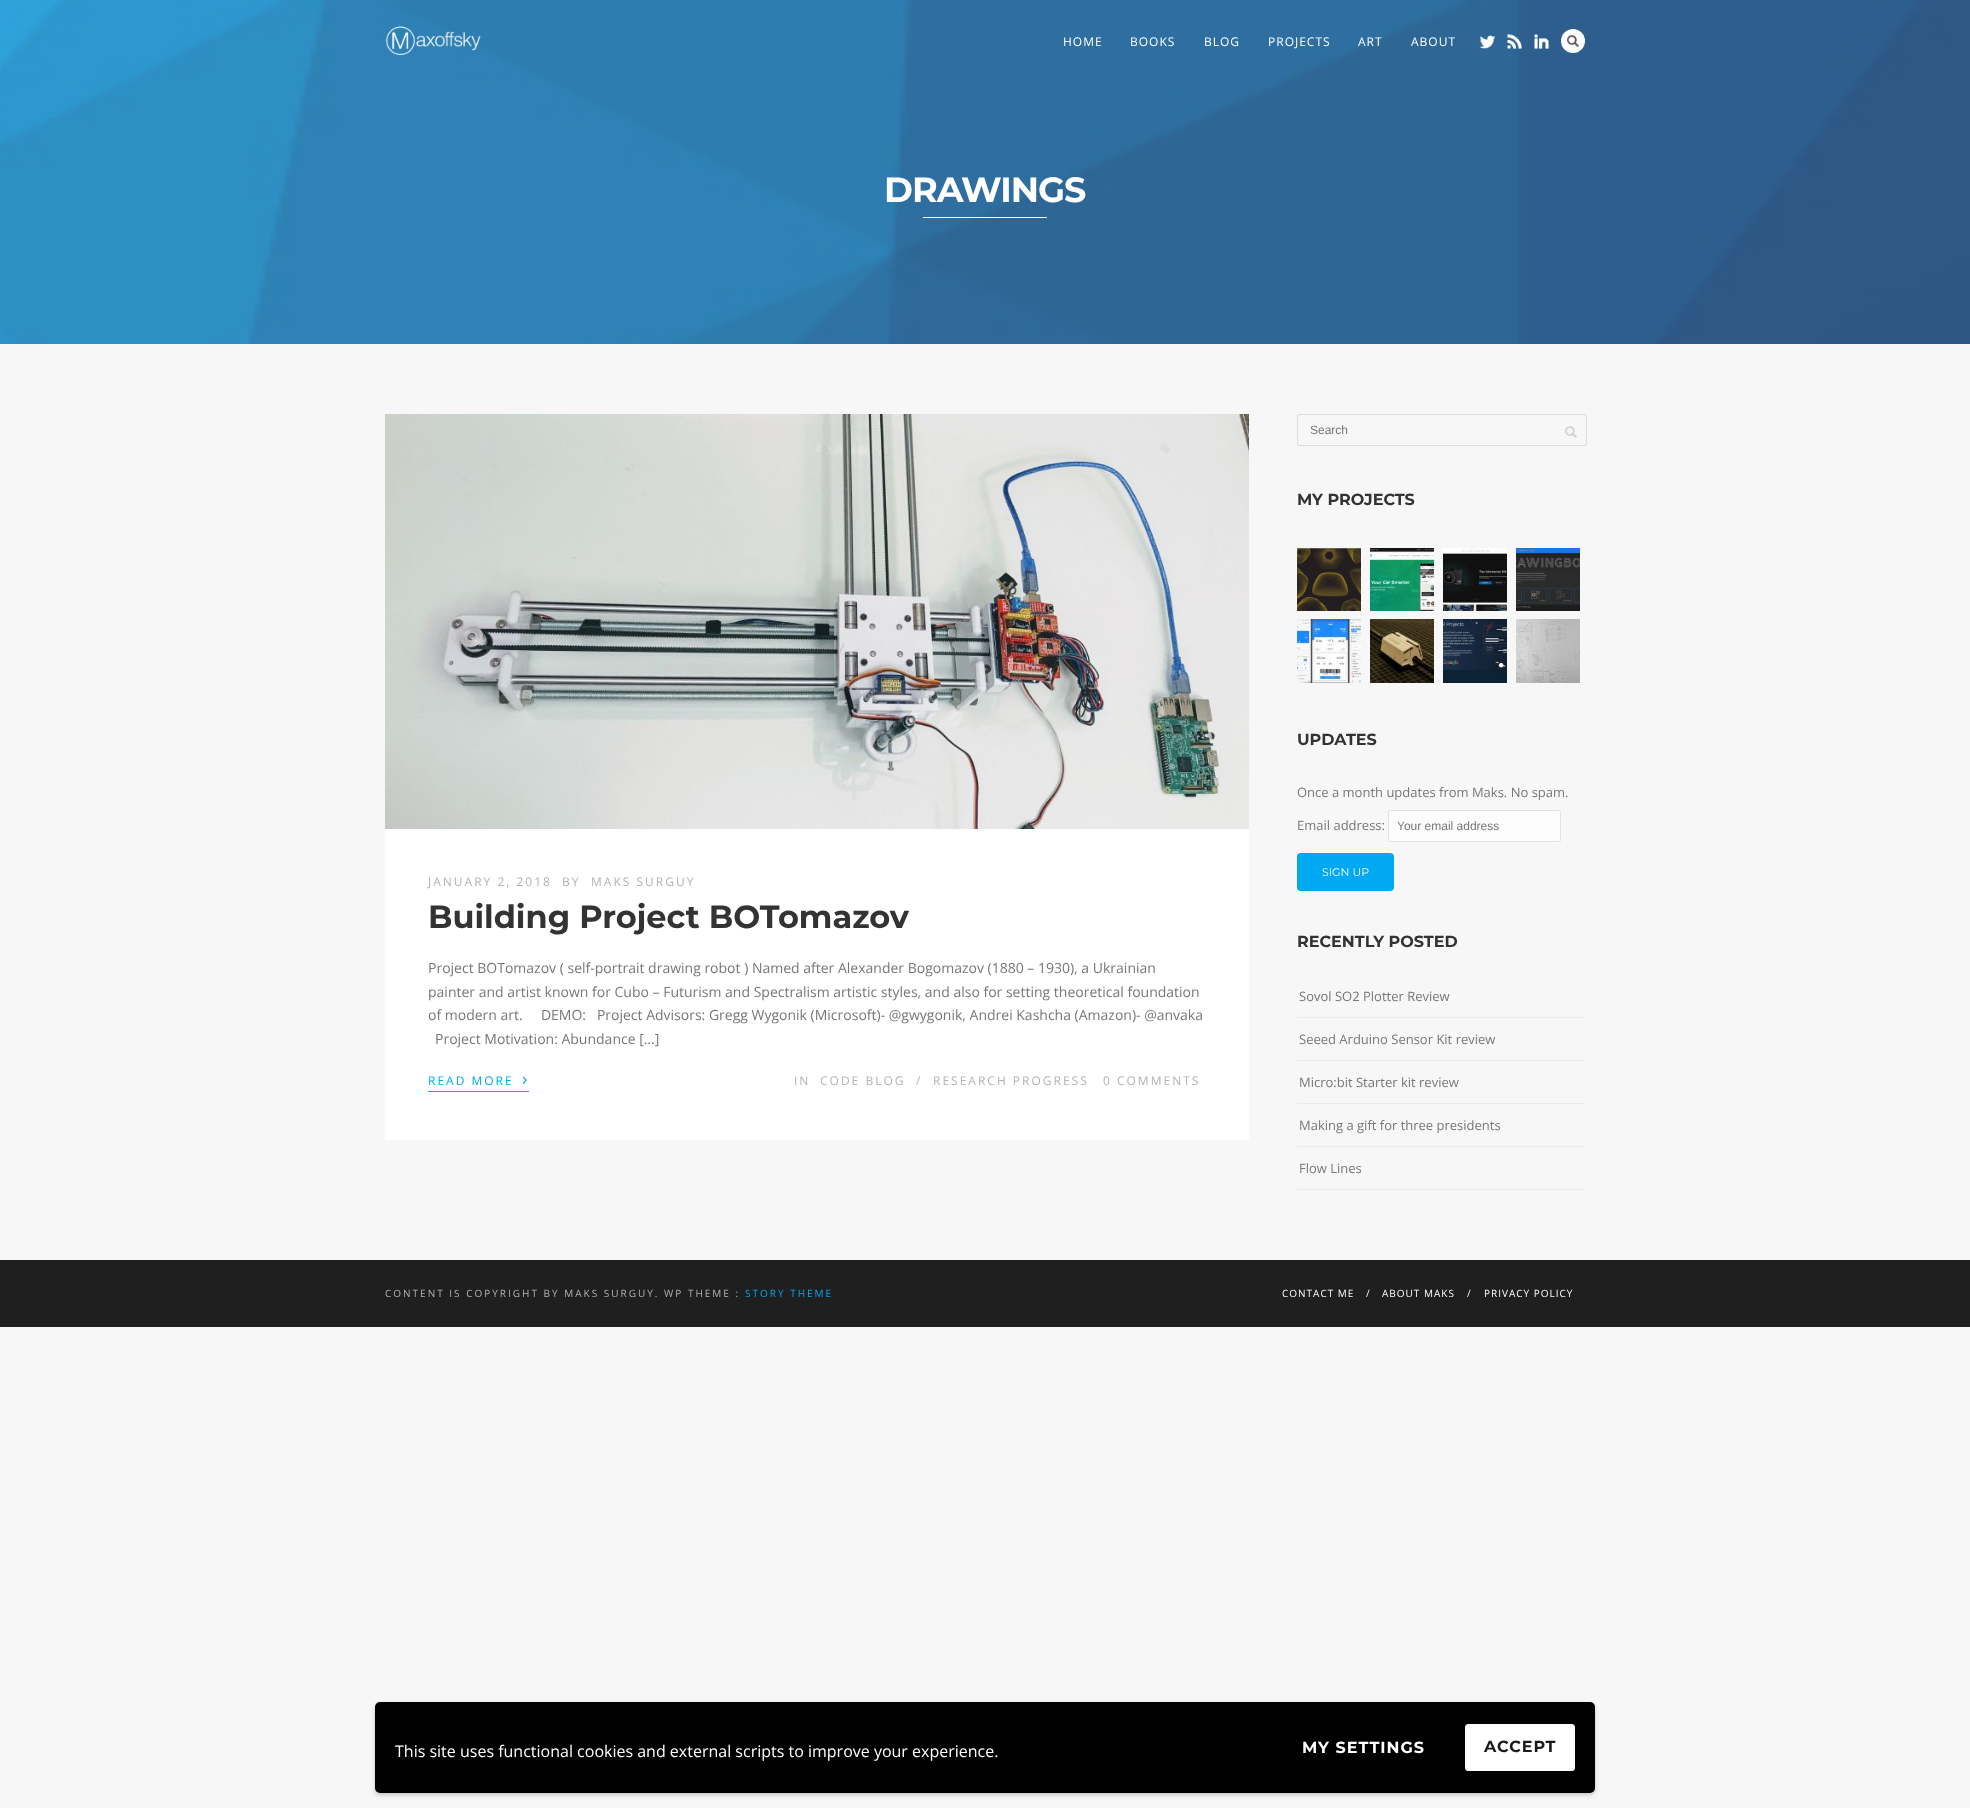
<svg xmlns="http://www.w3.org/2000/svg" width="1970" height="1808">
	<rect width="100%" height="100%" fill="#F7F7F7" />
	<image x="0" y="0" width="1970" height="344" href="assets/img1.png" />
	<image x="385" y="26" width="96" height="29" href="assets/img2.png" />
	<g font-family="Open Sans" font-size="12" letter-spacing="1" fill="#FFFFFF">
		<text x="1063" y="46">HOME</text>
		<text x="1130" y="46">BOOKS</text>
		<text x="1204" y="46">BLOG</text>
		<text x="1268" y="46">PROJECTS</text>
		<text x="1358" y="46">ART</text>
		<text x="1411" y="46">ABOUT</text>
	</g>
	<image x="1479" y="35" width="17" height="14" href="assets/img3.png" />
	<image x="1507" y="34" width="15" height="15" href="assets/img4.png" />
	<image x="1534" y="34" width="15" height="15" href="assets/img5.png" />
	<circle cx="1573" cy="41" r="12" fill="#FFFFFF" />
	<image x="1567" y="35" width="12" height="12" href="assets/img6.png" />
	<text x="884" y="202" font-family="Montserrat" font-size="35" font-weight="700" letter-spacing="-1" fill="#FFFFFF">DRAWINGS</text>
	<rect x="923" y="217" width="124" height="1" fill="#FFFFFF" />
	<rect x="385" y="829" width="864" height="311" fill="#FFFFFF" />
	<image x="385" y="414" width="864" height="415" href="assets/img7.png" />
	<g font-family="Open Sans" font-size="12" letter-spacing="2" fill="#B3B3B1">
		<text x="428" y="886">JANUARY 2, 2018</text>
		<text x="562" y="886">BY</text>
		<text x="591" y="886">MAKS SURGUY</text>
	</g>
	<text x="428" y="928" font-family="Montserrat" font-size="32" font-weight="700" fill="#333332">Building Project BOTomazov</text>
	<g font-family="Open Sans" font-size="14" fill="#777777">
		<text x="428" y="973">Project BOTomazov ( self-portrait drawing robot ) Named after Alexander Bogomazov (1880 – 1930), a Ukrainian</text>
		<text x="428" y="997">painter and artist known for Cubo – Futurism and Spectralism artistic styles, and also for setting theoretical foundation</text>
		<text x="428" y="1020" xml:space="preserve">of modern art.     DEMO:   Project Advisors: Gregg Wygonik (Microsoft)- @gwygonik, Andrei Kashcha (Amazon)- @anvaka</text>
		<text x="435" y="1044">Project Motivation: Abundance […]</text>
	</g>
	<rect x="428" y="1091" width="101" height="1" fill="#00A9F2" />
	<text x="428" y="1085" font-family="Open Sans" font-size="12" letter-spacing="2" fill="#00A9F2">READ MORE</text>
	<text x="522" y="1085" font-family="Open Sans" font-size="18" letter-spacing="2" fill="#00A9F2">›</text>
	<g font-family="Open Sans" font-size="12" letter-spacing="2" fill="#B3B3B1">
		<text x="794" y="1085">IN</text>
		<text x="820" y="1085">CODE BLOG</text>
		<text x="916" y="1085">/</text>
		<text x="933" y="1085">RESEARCH PROGRESS</text>
		<text x="1103" y="1085">0 COMMENTS</text>
	</g>
	<rect x="1297.5" y="414.5" width="289" height="31" rx="1.5" fill="none" stroke="#DEDEDE" />
	<text x="1310" y="434" font-family="Liberation Sans" font-size="12" fill="#777777">Search</text>
	<image x="1565" y="426" width="12" height="12" href="assets/img8.png" />
	<text x="1297" y="505" font-family="Montserrat" font-size="16" font-weight="700" fill="#333332">MY PROJECTS</text>
	<image x="1297" y="548" width="64" height="63" href="assets/img9.png" />
	<image x="1370" y="548" width="64" height="63" href="assets/img10.png" />
	<image x="1443" y="548" width="64" height="63" href="assets/img11.png" />
	<image x="1516" y="548" width="64" height="63" href="assets/img12.png" />
	<image x="1297" y="619" width="64" height="64" href="assets/img13.png" />
	<image x="1370" y="619" width="64" height="64" href="assets/img14.png" />
	<image x="1443" y="619" width="64" height="64" href="assets/img15.png" />
	<image x="1516" y="619" width="64" height="64" href="assets/img16.png" />
	<text x="1297" y="745" font-family="Montserrat" font-size="16" font-weight="700" fill="#333332">UPDATES</text>
	<g font-family="Open Sans" font-size="13" fill="#777777">
		<text x="1297" y="797">Once a month updates from Maks. No spam.</text>
		<text x="1297" y="830">Email address:</text>
	</g>
	<rect x="1388.5" y="810.5" width="172" height="31" rx="1.5" fill="#FCFCFC" stroke="#E3E3E3" />
	<text x="1397" y="830" font-family="Liberation Sans" font-size="12" fill="#777777">Your email address</text>
	<rect x="1297" y="853" width="97" height="38" rx="4" fill="#00A9F2" />
	<text x="1322" y="876" font-family="Montserrat" font-size="11" fill="#FFFFFF">SIGN UP</text>
	<text x="1297" y="947" font-family="Montserrat" font-size="16" font-weight="700" fill="#333332">RECENTLY POSTED</text>
	<rect x="1297" y="1017" width="288" height="1" fill="#EBEBEB" />
	<text x="1299" y="1001" font-family="Open Sans" font-size="13" fill="#777777">Sovol SO2 Plotter Review</text>
	<rect x="1297" y="1060" width="288" height="1" fill="#EBEBEB" />
	<text x="1299" y="1044" font-family="Open Sans" font-size="13" fill="#777777">Seeed Arduino Sensor Kit review</text>
	<rect x="1297" y="1103" width="288" height="1" fill="#EBEBEB" />
	<text x="1299" y="1087" font-family="Open Sans" font-size="13" fill="#777777">Micro:bit Starter kit review</text>
	<rect x="1297" y="1146" width="288" height="1" fill="#EBEBEB" />
	<text x="1299" y="1130" font-family="Open Sans" font-size="13" fill="#777777">Making a gift for three presidents</text>
	<rect x="1297" y="1189" width="288" height="1" fill="#EBEBEB" />
	<text x="1299" y="1173" font-family="Open Sans" font-size="13" fill="#777777">Flow Lines</text>
	<rect x="0" y="1260" width="1970" height="67" fill="#1F1F1F" />
	<text x="385" y="1297" font-family="Open Sans" font-size="10" letter-spacing="2" fill="#B3B3B1">CONTENT IS COPYRIGHT BY MAKS SURGUY. WP THEME :</text>
	<text x="745" y="1297" font-family="Open Sans" font-size="10" letter-spacing="2" fill="#00A9F2">STORY THEME</text>
	<text x="1282" y="1297" font-family="Open Sans" font-size="10" letter-spacing="1" fill="#FFFFFF">CONTACT ME</text>
	<text x="1366" y="1297" font-family="Open Sans" font-size="10" letter-spacing="1" fill="#F7F7F7">/</text>
	<text x="1382" y="1297" font-family="Open Sans" font-size="10" letter-spacing="1" fill="#FFFFFF">ABOUT MAKS</text>
	<text x="1467" y="1297" font-family="Open Sans" font-size="10" letter-spacing="1" fill="#F7F7F7">/</text>
	<text x="1484" y="1297" font-family="Open Sans" font-size="10" letter-spacing="1" fill="#FFFFFF">PRIVACY POLICY</text>
	<rect x="375" y="1704" width="1220" height="91" rx="5" fill="#000000" fill-opacity="0.2" filter="blur(2px)" />
	<rect x="375" y="1702" width="1220" height="91" rx="5" fill="#000000" />
	<text x="395" y="1757" font-family="Open Sans" font-size="16" fill="#FFFFFF">This site uses functional cookies and external scripts to improve your experience.</text>
	<text x="1302" y="1753" font-family="Montserrat" font-size="16" font-weight="700" letter-spacing="1" fill="#FFFFFF">MY SETTINGS</text>
	<rect x="1465.5" y="1724.5" width="109" height="46" rx="2.5" fill="#FFFFFF" stroke="#FFFFFF" />
	<text x="1484" y="1752" font-family="Montserrat" font-size="16" font-weight="700" letter-spacing="1" fill="#1A1A1A">ACCEPT</text>
</svg>
